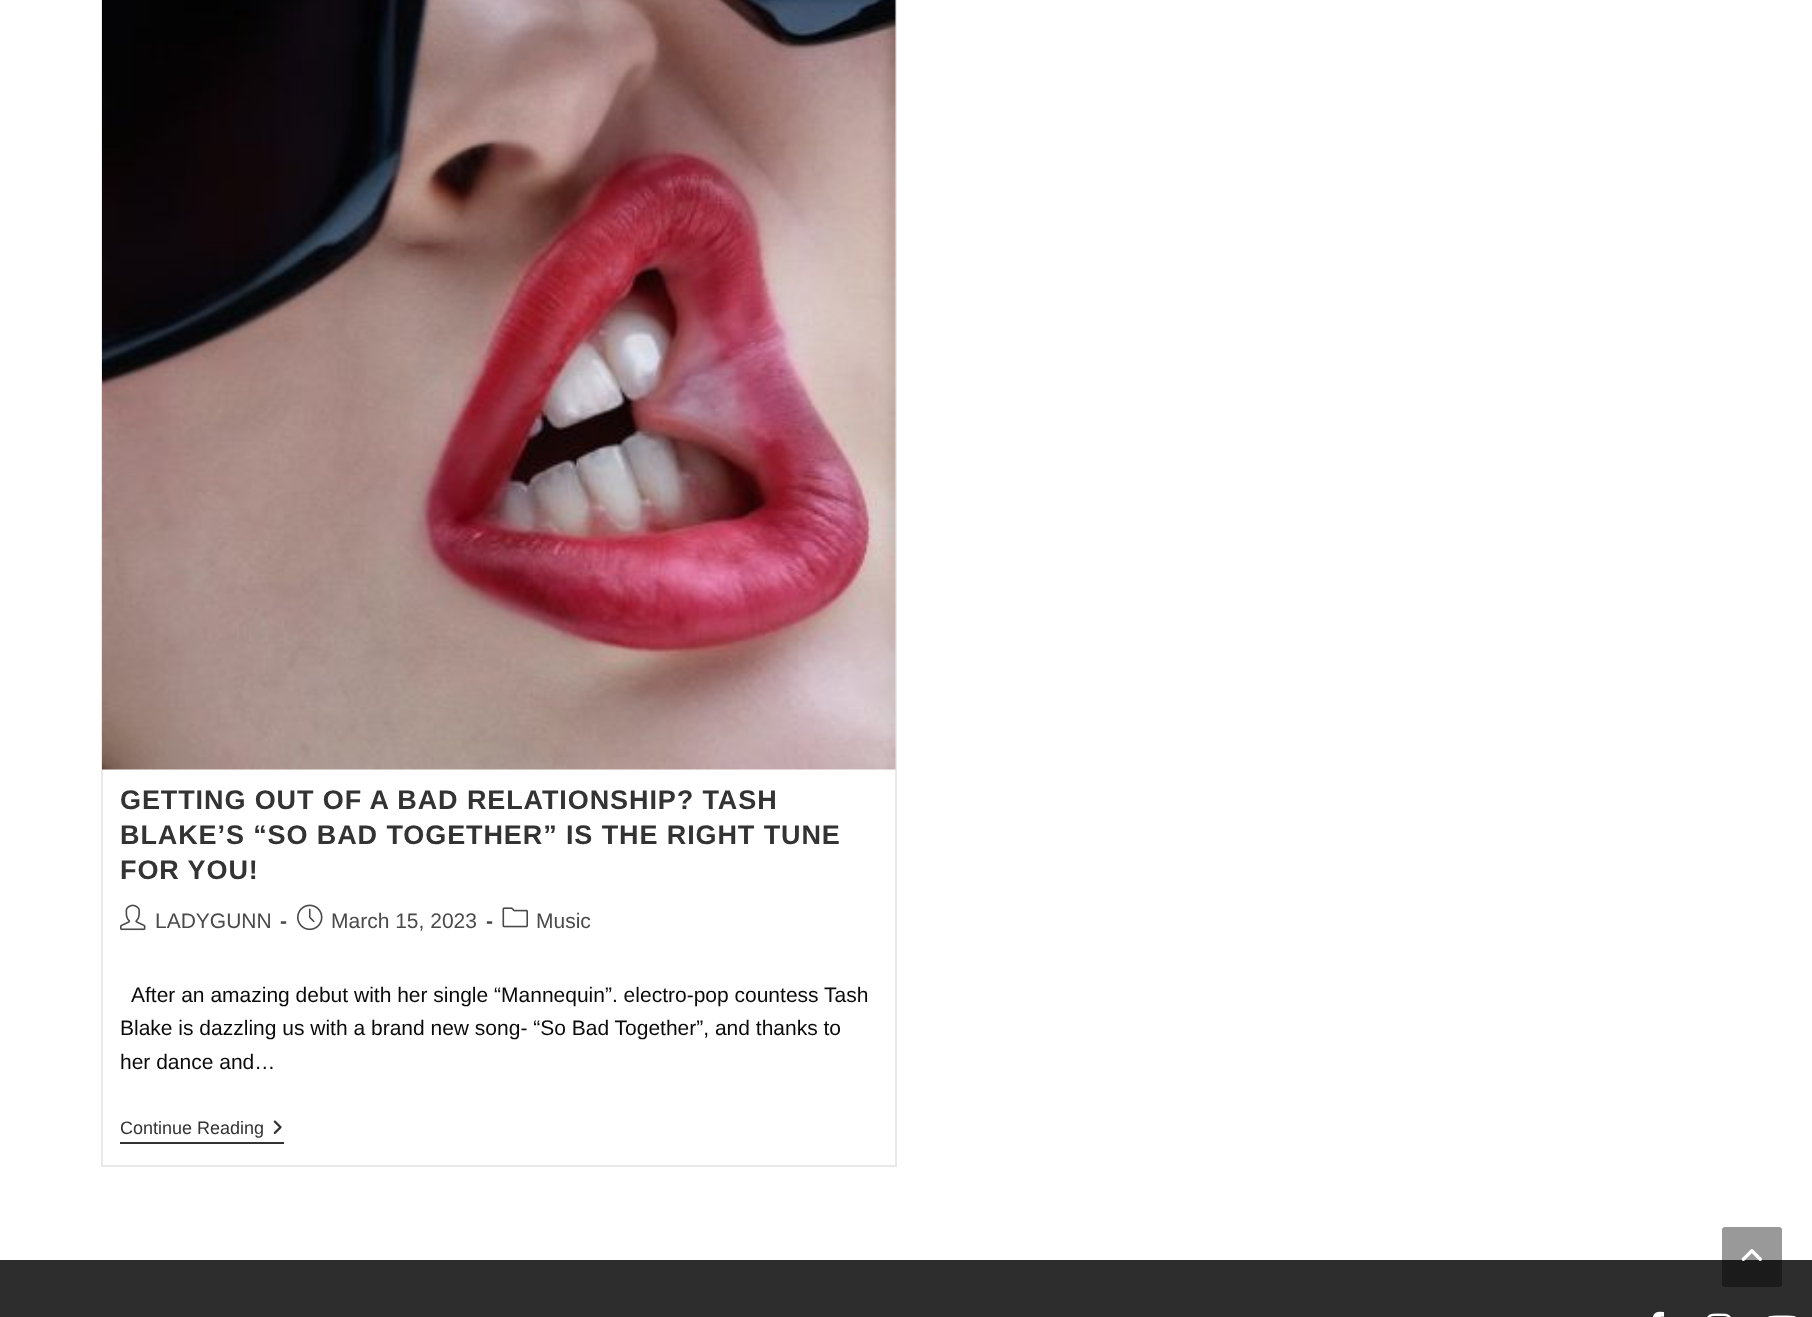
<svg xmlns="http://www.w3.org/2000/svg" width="1812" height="1317">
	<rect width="100%" height="100%" fill="#FFFFFF" />
	<rect x="102" y="-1" width="794" height="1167" fill="none" stroke="#E9E9E9" stroke-width="2" />
	<image x="102" y="0" width="794" height="770" href="assets/img1.png" />
	<g font-family="Liberation Sans" font-size="27" font-weight="700" letter-spacing="0.9" fill="#333333">
		<text x="120" y="809">GETTING OUT OF A BAD RELATIONSHIP? TASH</text>
		<text x="120" y="844">BLAKE’S “SO BAD TOGETHER” IS THE RIGHT TUNE</text>
		<text x="120" y="879">FOR YOU!</text>
	</g>
	<image x="120" y="904" width="26" height="27" href="assets/img2.png" />
	<text x="155" y="928" font-family="Liberation Sans" font-size="21" fill="#4A4A4A">LADYGUNN</text>
	<text x="280" y="928" font-family="Liberation Sans" font-size="21" font-weight="700" fill="#4A4A4A">-</text>
	<image x="297" y="904" width="26" height="27" href="assets/img3.png" />
	<text x="331" y="928" font-family="Liberation Sans" font-size="21" fill="#4A4A4A">March 15, 2023</text>
	<text x="486" y="928" font-family="Liberation Sans" font-size="21" font-weight="700" fill="#4A4A4A">-</text>
	<image x="502" y="907" width="26" height="21" href="assets/img4.png" />
	<text x="536" y="928" font-family="Liberation Sans" font-size="21" fill="#4A4A4A">Music</text>
	<g font-family="Liberation Sans" font-size="21" fill="#0A0A0A">
		<text x="131" y="1002">After an amazing debut with her single “Mannequin”. electro-pop countess Tash</text>
		<text x="120" y="1035">Blake is dazzling us with a brand new song- “So Bad Together”, and thanks to</text>
		<text x="120" y="1069">her dance and…</text>
	</g>
	<rect x="120" y="1142" width="164" height="2" fill="#333333" />
	<text x="120" y="1134" font-family="Liberation Sans" font-size="18" fill="#333333">Continue Reading</text>
	<image x="273" y="1120" width="9" height="14" href="assets/img5.png" />
	<rect x="0" y="1260" width="1812" height="57" fill="#2D2D2D" />
	<image x="1653" y="1311" width="12" height="6" href="assets/img6.png" />
	<image x="1707" y="1313" width="24" height="4" href="assets/img7.png" />
	<image x="1768" y="1315" width="28" height="2" href="assets/img8.png" />
	<rect x="1722" y="1227" width="60" height="60" rx="3" fill="#000000" fill-opacity="0.4" />
	<image x="1741" y="1249" width="21" height="12" href="assets/img9.png" />
</svg>
